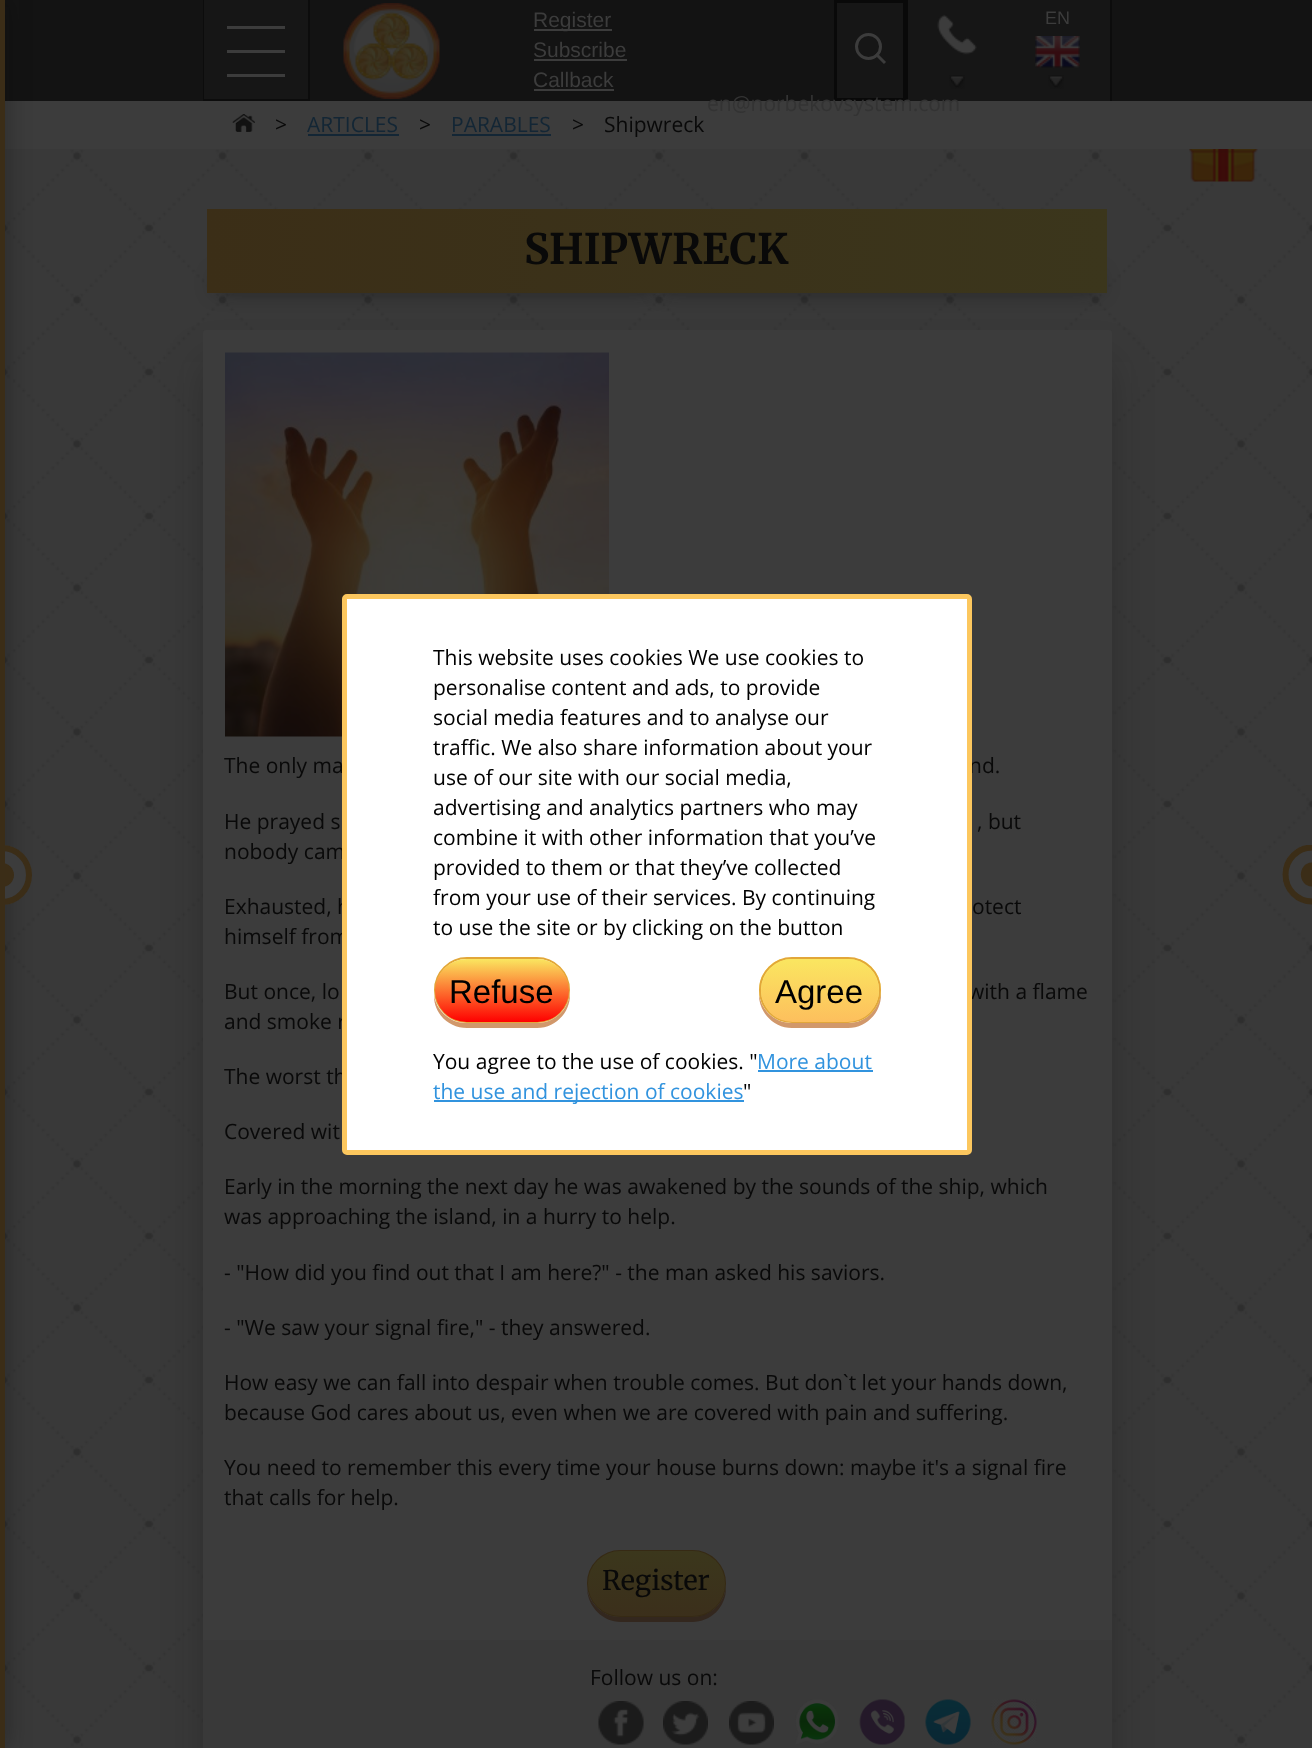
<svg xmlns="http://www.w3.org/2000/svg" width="1312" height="1748">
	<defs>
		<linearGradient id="g1" gradientUnits="userSpaceOnUse" x1="1107" y1="251" x2="207" y2="250"><stop offset="0" stop-color="#3B361C" /><stop offset="1" stop-color="#3B2E17" /></linearGradient>
		<linearGradient id="g2" gradientUnits="userSpaceOnUse" x1="656" y1="1616" x2="656" y2="1551"><stop offset="0" stop-color="#3B2F1B" /><stop offset="1" stop-color="#3B371C" /></linearGradient>
		<linearGradient id="g3" gradientUnits="userSpaceOnUse" x1="502" y1="1022" x2="502" y2="959"><stop offset="0" stop-color="#FF0000" /><stop offset="1" stop-color="#FAE660" /></linearGradient>
		<clipPath id="clip1"><rect x="759" y="957" width="122" height="66" rx="33" /></clipPath>
		<linearGradient id="g4" gradientUnits="userSpaceOnUse" x1="820" y1="1022" x2="820" y2="959"><stop offset="0" stop-color="#F9F0A4" /><stop offset="1" stop-color="#FAE660" /></linearGradient>
		<linearGradient id="g5" gradientUnits="userSpaceOnUse" x1="820" y1="1022" x2="820" y2="959"><stop offset="0" stop-color="#FDBF5D" /><stop offset="1" stop-color="#FAE660" /></linearGradient>
		<clipPath id="clip2"><rect x="1268" y="845" width="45" height="60" /></clipPath>
	</defs>
	<rect width="100%" height="100%" fill="#FFFFFF" />
	<image x="5" y="149" width="1307" height="1599" href="assets/img1.png" />
	<rect x="5" y="0" width="1307" height="101" fill="#131313" />
	<rect x="5" y="101" width="1307" height="48" fill="#3C3C3C" />
	<rect x="-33" y="0" width="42" height="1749" fill="#0B0B0B" fill-opacity="0.28" filter="blur(11px)" />
	<path d="M2 845C18.5 845 32 858.5 32 875C32 891.5 18.5 905 2 905Z" fill="#3C3C3C" />
	<circle cx="2" cy="875" r="27" fill="none" stroke="#3B2D17" stroke-width="6" />
	<path d="M2 863C8.5 863 14 868.5 14 875C14 881.5 8.5 887 2 887Z" fill="#3B2D17" />
	<rect x="0" y="0" width="5" height="1748" fill="#3B2D17" />
	<rect x="308" y="0" width="2" height="101" fill="#0C0C0C" />
	<rect x="203" y="99" width="106" height="2" fill="#0C0C0C" />
	<rect x="203" y="0" width="2" height="101" fill="#0C0C0C" />
	<rect x="204" y="0" width="104" height="99" fill="#161616" />
	<rect x="227" y="26" width="58" height="3" fill="#3C3C3C" />
	<rect x="227" y="50" width="58" height="3" fill="#3C3C3C" />
	<rect x="227" y="74" width="58" height="3" fill="#3C3C3C" />
	<image x="343" y="3" width="97" height="96" href="assets/img2.png" />
	<rect x="534" y="29" width="78" height="2" fill="#3C3C3C" />
	<g font-family="Liberation Sans" font-size="21" fill="#3C3C3C">
		<text x="533" y="27">Register</text>
		<text x="533" y="57">Subscribe</text>
	</g>
	<rect x="534" y="59" width="93" height="2" fill="#3C3C3C" />
	<text x="533" y="87" font-family="Liberation Sans" font-size="21" fill="#3C3C3C">Сallback</text>
	<rect x="534" y="89" width="80" height="2" fill="#3C3C3C" />
	<rect x="835.5" y="1.5" width="69" height="98" fill="#161616" stroke="#090909" stroke-width="3" />
	<circle cx="868.5" cy="46.5" r="12" fill="none" stroke="#3C3C3C" stroke-width="3" />
	<path d="M876 54L885 63" fill="none" stroke="#3C3C3C" stroke-width="3" />
	<rect x="1110" y="0" width="2" height="101" fill="#0C0C0C" />
	<rect x="908" y="0" width="202" height="101" fill="#161616" />
	<text x="1045" y="24" font-family="Liberation Sans" font-size="18" fill="#3C3C3C">EN</text>
	<image x="1035" y="36" width="45" height="32" href="assets/img3.png" />
	<image x="1048" y="75" width="16" height="14" href="assets/img4.png" />
	<image x="937" y="14" width="40" height="41" href="assets/img5.png" />
	<rect x="906" y="0" width="2" height="101" fill="#090909" />
	<image x="949" y="75" width="16" height="14" href="assets/img4.png" />
	<text x="707" y="111" font-family="Open Sans" font-size="21" fill="#333333">en@norbekovsystem.com</text>
	<image x="232" y="114" width="23" height="18" href="assets/img6.png" />
	<text x="275" y="132" font-family="Open Sans" font-size="21" fill="#090909">&gt;</text>
	<text x="307" y="132" font-family="Open Sans" font-size="21" fill="#132635">ARTICLES</text>
	<rect x="308" y="134" width="91" height="2" fill="#132635" />
	<text x="419" y="132" font-family="Open Sans" font-size="21" fill="#090909">&gt;</text>
	<text x="451" y="132" font-family="Open Sans" font-size="21" fill="#132635">PARABLES</text>
	<rect x="452" y="134" width="99" height="2" fill="#132635" />
	<g font-family="Open Sans" font-size="21" fill="#090909">
		<text x="572" y="132">&gt;</text>
		<text x="604" y="132">Shipwreck</text>
	</g>
	<rect x="218" y="279" width="435" height="8" fill="#090909" filter="blur(10.5px)" />
	<rect x="662" y="279" width="435" height="8" fill="#090909" filter="blur(10.5px)" />
	<rect x="207" y="209" width="900" height="84" fill="url(#g1)" />
	<text x="524" y="264" font-family="Merriweather" font-size="42" font-weight="700" fill="#090909">SHIPWRECK</text>
	<rect x="203" y="362" width="909" height="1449" rx="3" fill="#0B0B0B" fill-opacity="0.23" filter="blur(20px)" />
	<rect x="203" y="330" width="909" height="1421" rx="3" fill="#3C3C3C" />
	<image x="225" y="352" width="384" height="385" href="assets/img7.png" />
	<g font-family="Open Sans" font-size="21" fill="#090909">
		<text x="224" y="773">The only ma</text>
		<text x="969" y="773">nd.</text>
		<text x="224" y="829">He prayed s</text>
		<text x="977" y="829">, but</text>
		<text x="224" y="859">nobody cam</text>
		<text x="224" y="914">Exhausted, h</text>
		<text x="972" y="914">otect</text>
		<text x="224" y="944">himself from</text>
		<text x="224" y="999">But once, lo</text>
		<text x="968" y="999">with a flame</text>
		<text x="224" y="1029">and smoke r</text>
		<text x="224" y="1084">The worst th</text>
		<text x="224" y="1139">Covered wit</text>
		<text x="224" y="1194">Early in the morning the next day he was awakened by the sounds of the ship, which</text>
		<text x="224" y="1224">was approaching the island, in a hurry to help.</text>
		<text x="224" y="1280">- "How did you find out that I am here?" - the man asked his saviors.</text>
		<text x="224" y="1335">- "We saw your signal fire," - they answered.</text>
		<text x="224" y="1390">How easy we can fall into despair when trouble comes. But don`t let your hands down,</text>
		<text x="224" y="1420">because God cares about us, even when we are covered with pain and suffering.</text>
		<text x="224" y="1475">You need to remember this every time your house burns down: maybe it's a signal fire</text>
		<text x="224" y="1505">that calls for help.</text>
	</g>
	<path d="M587 1589C588 1607 603 1622 621 1622H692C711 1622 726 1607 726 1588V1586C725 1603 710 1617 692 1617H620C604 1617 590 1605 587 1589Z" fill="#33271E" />
	<rect x="588" y="1551" width="137" height="65" rx="32.5" fill="none" stroke="#362A14" stroke-width="2" />
	<rect x="588" y="1551" width="137" height="65" rx="32.5" fill="url(#g2)" />
	<text x="602" y="1590" font-family="Merriweather" font-size="27" fill="#090909">Register</text>
	<rect x="203" y="1640" width="909" height="108" fill="#393939" />
	<text x="590" y="1685" font-family="Open Sans" font-size="21" fill="#090909">Follow us on:</text>
	<image x="598" y="1701" width="46" height="44" href="assets/img8.png" />
	<image x="663" y="1701" width="45" height="44" href="assets/img9.png" />
	<image x="729" y="1701" width="45" height="44" href="assets/img10.png" />
	<image x="795" y="1699" width="44" height="46" href="assets/img11.png" />
	<image x="859" y="1699" width="46" height="46" href="assets/img12.png" />
	<image x="925" y="1699" width="46" height="46" href="assets/img13.png" />
	<image x="991" y="1699" width="46" height="46" href="assets/img14.png" />
	<image x="1189" y="149" width="69" height="33" href="assets/img15.png" />
	<rect x="344.5" y="596.5" width="625" height="556" rx="2.5" fill="#FFFFFF" stroke="#FCC75E" stroke-width="5" />
	<g font-family="Open Sans" font-size="21" fill="#000000">
		<text x="433" y="665">This website uses cookies We use cookies to</text>
		<text x="433" y="695">personalise content and ads, to provide</text>
		<text x="433" y="725">social media features and to analyse our</text>
		<text x="433" y="755">traffic. We also share information about your</text>
		<text x="433" y="785">use of our site with our social media,</text>
		<text x="433" y="815">advertising and analytics partners who may</text>
		<text x="433" y="845">combine it with other information that you’ve</text>
		<text x="433" y="875">provided to them or that they’ve collected</text>
		<text x="433" y="905">from your use of their services. By continuing</text>
		<text x="433" y="935">to use the site or by clicking on the button</text>
	</g>
	<path d="M434 996C434 1014 449 1028 467 1028H537C555 1028 570 1013 570 995V992C569 1010 554 1023 537 1023H466C450 1023 437 1011 434 996Z" fill="#D1986B" />
	<rect x="435" y="958" width="134" height="64" rx="32" fill="none" stroke="#E2A739" stroke-width="2" />
	<rect x="435" y="959" width="134" height="63" rx="31.5" fill="url(#g3)" />
	<text x="449" y="1003" font-family="Liberation Sans" font-size="33" fill="#000000">Refuse</text>
	<path d="M759 992V995C759 1013 774 1028 792 1028H848C866 1028 881 1013 881 995L880 989V990C880 1008 866 1023 848 1023H792C775 1023 760 1010 759 992Z" fill="#D1986B" />
	<g clip-path="url(#clip1)">
		<rect x="759" y="959" width="122" height="63" fill="url(#g4)" />
	</g>
	<rect x="760" y="958" width="120" height="64" rx="32" fill="none" stroke="#E2A739" stroke-width="2" />
	<rect x="761" y="959" width="118" height="63" rx="31.5" fill="url(#g5)" />
	<text x="775" y="1003" font-family="Liberation Sans" font-size="33" fill="#000000">Agree</text>
	<text x="433" y="1069" font-family="Open Sans" font-size="21" fill="#000000">You agree to the use of cookies. "</text>
	<text x="757" y="1069" font-family="Open Sans" font-size="21" fill="#3193DE">More about</text>
	<rect x="758" y="1070" width="115" height="2" fill="#3193DE" />
	<rect x="434" y="1100" width="310" height="2" fill="#3193DE" />
	<text x="433" y="1099" font-family="Open Sans" font-size="21" fill="#3193DE">the use and rejection of cookies</text>
	<text x="743" y="1099" font-family="Open Sans" font-size="21" fill="#000000">"</text>
	<g clip-path="url(#clip2)">
		<path d="M1312 904C1296 904 1282 891 1282 874C1282 858 1296 844 1312 844C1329 844 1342 858 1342 874C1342 891 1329 904 1312 904Z" fill="#3C3C3C" />
		<path d="M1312.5 901.5C1297.5 901.5 1285.5 889.5 1285.5 874.5C1285.5 859.5 1297.5 847.5 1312.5 847.5C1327.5 847.5 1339.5 859.5 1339.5 874.5C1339.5 889.5 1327.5 901.5 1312.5 901.5Z" fill="none" stroke="#3B2D17" stroke-width="6" />
	</g>
	<path d="M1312.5 886.5C1297 886.5 1297 862.5 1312.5 862.5C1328 862.5 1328 886.5 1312.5 886.5Z" fill="#3B2D17" />
</svg>
